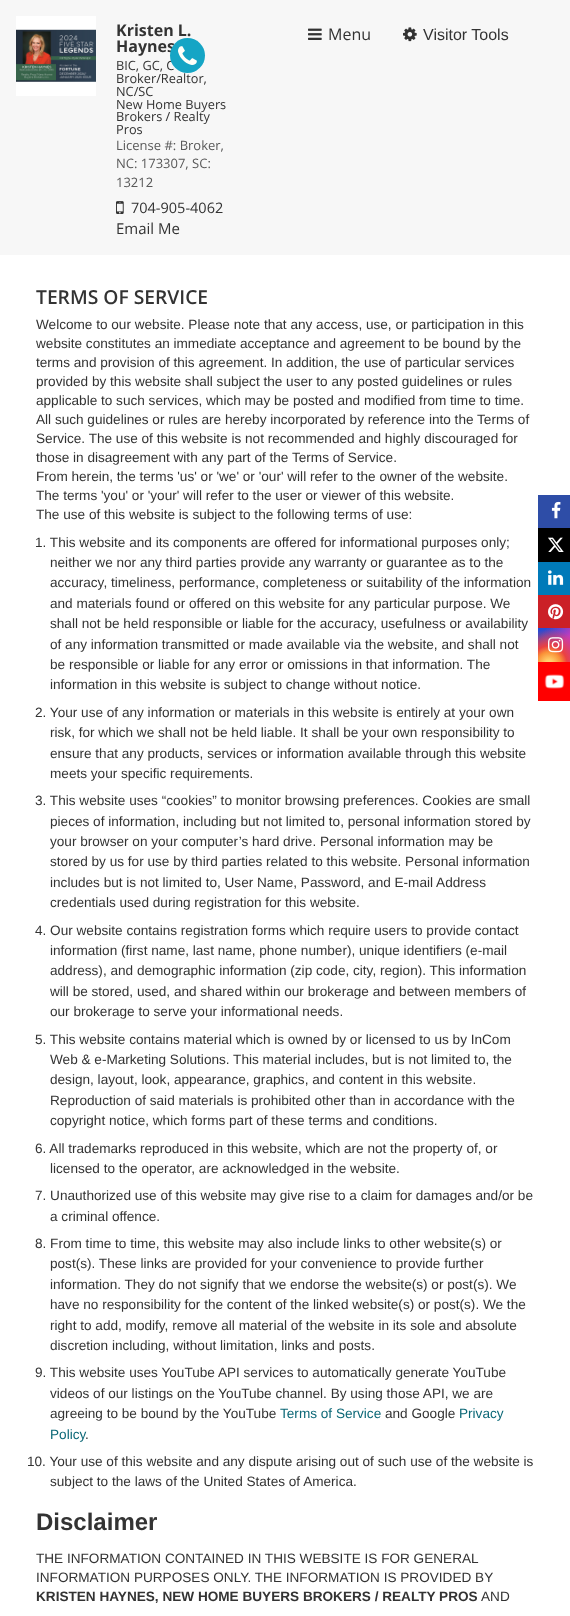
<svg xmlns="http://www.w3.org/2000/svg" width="570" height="1616">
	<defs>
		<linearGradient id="g1" gradientUnits="userSpaceOnUse" x1="538" y1="628" x2="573" y2="662"><stop offset="0.12" stop-color="#234BD7" /><stop offset="0.58" stop-color="#C33CBE" /></linearGradient>
		<radialGradient id="g2" gradientUnits="userSpaceOnUse" cx="549" cy="664" r="43"><stop offset="0" stop-color="#FFE17D" /><stop offset="0.1" stop-color="#FFCD69" /><stop offset="0.28" stop-color="#FA9137" /><stop offset="0.42" stop-color="#EB4141" /><stop offset="0.82" stop-color="#EB4141" stop-opacity="0" /></radialGradient>
	</defs>
	<rect width="100%" height="100%" fill="#FFFFFF" />
	<rect x="0" y="0" width="570" height="255" fill="#F7F7F7" />
	<rect x="16" y="16" width="80" height="80" fill="#FFFFFF" />
	<image x="16" y="29" width="80" height="53" href="assets/img1.png" />
	<g font-family="Open Sans" font-size="16" font-weight="700" fill="#333333">
		<text x="116" y="36">Kristen L.</text>
		<text x="116" y="52">Haynes</text>
	</g>
	<g font-family="Open Sans" font-size="12.75" fill="#333333">
		<text x="116" y="70">BIC, GC, C</text>
		<text x="116" y="83">Broker/Realtor,</text>
		<text x="116" y="96">NC/SC</text>
		<text x="116" y="109">New Home Buyers</text>
		<text x="116" y="121">Brokers / Realty</text>
		<text x="116" y="134">Pros</text>
	</g>
	<g font-family="Open Sans" font-size="13" fill="#595959">
		<text x="116" y="150">License #: Broker,</text>
		<text x="116" y="168">NC: 173307, SC:</text>
		<text x="116" y="187">13212</text>
	</g>
	<image x="116" y="201" width="8" height="13" href="assets/img2.png" />
	<text x="131" y="213" font-family="Open Sans" font-size="14.5" fill="#333333">704-905-4062</text>
	<text x="116" y="234" font-family="Open Sans" font-size="15" fill="#333333">Email Me</text>
	<circle cx="187.5" cy="55.5" r="17.5" fill="#15A5C5" />
	<image x="178" y="46" width="19" height="19" href="assets/img3.png" />
	<image x="308" y="28" width="14" height="12" href="assets/img4.png" />
	<text x="328" y="40" font-family="Open Sans" font-size="16" fill="#333333">Menu</text>
	<image x="403" y="27" width="14" height="15" href="assets/img5.png" />
	<text x="423" y="40" font-family="Liberation Sans" font-size="16" fill="#333333">Visitor Tools</text>
	<text x="36" y="304" font-family="Open Sans" font-size="19.25" font-weight="600" fill="#333333">TERMS OF SERVICE</text>
	<g font-family="Liberation Sans" font-size="13.6" fill="#333333">
		<text x="36" y="329">Welcome to our website. Please note that any access, use, or participation in this</text>
		<text x="36" y="348">website constitutes an immediate acceptance and agreement to be bound by the</text>
		<text x="36" y="367">terms and provision of this agreement. In addition, the use of particular services</text>
		<text x="36" y="386">provided by this website shall subject the user to any posted guidelines or rules</text>
		<text x="36" y="405">applicable to such services, which may be posted and modified from time to time.</text>
		<text x="36" y="424">All such guidelines or rules are hereby incorporated by reference into the Terms of</text>
		<text x="36" y="443">Service. The use of this website is not recommended and highly discouraged for</text>
		<text x="36" y="462">those in disagreement with any part of the Terms of Service.</text>
		<text x="36" y="481">From herein, the terms 'us' or 'we' or 'our' will refer to the owner of the website.</text>
		<text x="36" y="500">The terms 'you' or 'your' will refer to the user or viewer of this website.</text>
		<text x="36" y="519">The use of this website is subject to the following terms of use:</text>
		<text x="35" y="547">1. This website and its components are offered for informational purposes only;</text>
		<text x="50" y="567">neither we nor any third parties provide any warranty or guarantee as to the</text>
		<text x="50" y="587">accuracy, timeliness, performance, completeness or suitability of the information</text>
		<text x="50" y="608">and materials found or offered on this website for any particular purpose. We</text>
		<text x="50" y="628">shall not be held responsible or liable for the accuracy, usefulness or availability</text>
		<text x="50" y="649">of any information transmitted or made available via the website, and shall not</text>
		<text x="50" y="669">be responsible or liable for any error or omissions in that information. The</text>
		<text x="50" y="689">information in this website is subject to change without notice.</text>
		<text x="35" y="717">2. Your use of any information or materials in this website is entirely at your own</text>
		<text x="50" y="737">risk, for which we shall not be held liable. It shall be your own responsibility to</text>
		<text x="50" y="758">ensure that any products, services or information available through this website</text>
		<text x="50" y="778">meets your specific requirements.</text>
		<text x="35" y="805">3. This website uses “cookies” to monitor browsing preferences. Cookies are small</text>
		<text x="50" y="826">pieces of information, including but not limited to, personal information stored by</text>
		<text x="50" y="846">your browser on your computer’s hard drive. Personal information may be</text>
		<text x="50" y="866">stored by us for use by third parties related to this website. Personal information</text>
		<text x="50" y="887">includes but is not limited to, User Name, Password, and E-mail Address</text>
		<text x="50" y="907">credentials used during registration for this website.</text>
		<text x="35" y="935">4. Our website contains registration forms which require users to provide contact</text>
		<text x="50" y="955">information (first name, last name, phone number), unique identifiers (e-mail</text>
		<text x="50" y="975">address), and demographic information (zip code, city, region). This information</text>
		<text x="50" y="996">will be stored, used, and shared within our brokerage and between members of</text>
		<text x="50" y="1016">our brokerage to serve your informational needs.</text>
		<text x="35" y="1044">5. This website contains material which is owned by or licensed to us by InCom</text>
		<text x="50" y="1064">Web &amp; e-Marketing Solutions. This material includes, but is not limited to, the</text>
		<text x="50" y="1084">design, layout, look, appearance, graphics, and content in this website.</text>
		<text x="50" y="1105">Reproduction of said materials is prohibited other than in accordance with the</text>
		<text x="50" y="1125">copyright notice, which forms part of these terms and conditions.</text>
		<text x="35" y="1153">6. All trademarks reproduced in this website, which are not the property of, or</text>
		<text x="50" y="1173">licensed to the operator, are acknowledged in the website.</text>
		<text x="35" y="1200">7. Unauthorized use of this website may give rise to a claim for damages and/or be</text>
		<text x="50" y="1221">a criminal offence.</text>
		<text x="35" y="1248">8. From time to time, this website may also include links to other website(s) or</text>
		<text x="50" y="1268">post(s). These links are provided for your convenience to provide further</text>
		<text x="50" y="1289">information. They do not signify that we endorse the website(s) or post(s). We</text>
		<text x="50" y="1309">have no responsibility for the content of the linked website(s) or post(s). We the</text>
		<text x="50" y="1330">right to add, modify, remove all material of the website in its sole and absolute</text>
		<text x="50" y="1350">discretion including, without limitation, links and posts.</text>
		<text x="35" y="1377">9. This website uses YouTube API services to automatically generate YouTube</text>
		<text x="50" y="1398">videos of our listings on the YouTube channel. By using those API, we are</text>
		<text x="50" y="1418">agreeing to be bound by the YouTube</text>
	</g>
	<text x="280" y="1418" font-family="Liberation Sans" font-size="13.6" fill="#0C6877">Terms of Service</text>
	<text x="385" y="1418" font-family="Liberation Sans" font-size="13.6" fill="#333333">and Google</text>
	<g font-family="Liberation Sans" font-size="13.6" fill="#0C6877">
		<text x="459" y="1418">Privacy</text>
		<text x="50" y="1439">Policy</text>
	</g>
	<g font-family="Liberation Sans" font-size="13.6" fill="#333333">
		<text x="85" y="1439">.</text>
		<text x="27" y="1466">10. Your use of this website and any dispute arising out of such use of the website is</text>
		<text x="50" y="1486">subject to the laws of the United States of America.</text>
	</g>
	<text x="36" y="1530" font-family="Liberation Sans" font-size="24" font-weight="700" fill="#333333">Disclaimer</text>
	<g font-family="Liberation Sans" font-size="13.6" fill="#333333">
		<text x="36" y="1563">THE INFORMATION CONTAINED IN THIS WEBSITE IS FOR GENERAL</text>
		<text x="36" y="1582">INFORMATION PURPOSES ONLY. THE INFORMATION IS PROVIDED BY</text>
	</g>
	<text x="36" y="1601" font-family="Liberation Sans" font-size="13.6" font-weight="700" fill="#333333">KRISTEN HAYNES, NEW HOME BUYERS BROKERS / REALTY PROS</text>
	<text x="481" y="1601" font-family="Liberation Sans" font-size="13.6" fill="#333333">AND</text>
	<rect x="538" y="495" width="32" height="33" fill="#2E4DA7" />
	<image x="551" y="501" width="10" height="18" href="assets/img6.png" />
	<rect x="538" y="528" width="32" height="34" fill="#000000" />
	<image x="548" y="537" width="16" height="15" href="assets/img7.png" />
	<rect x="538" y="562" width="32" height="33" fill="#007AB9" />
	<image x="548" y="570" width="16" height="15" href="assets/img8.png" />
	<rect x="538" y="595" width="32" height="33" fill="#CB2027" />
	<image x="548" y="604" width="16" height="16" href="assets/img9.png" />
	<rect x="538" y="628" width="32" height="34" fill="url(#g1)" />
	<rect x="538" y="629" width="32" height="33" fill="url(#g2)" />
	<image x="548" y="637" width="16" height="16" href="assets/img10.png" />
	<rect x="538" y="662" width="32" height="39" fill="#FF0000" />
	<image x="544" y="674" width="21" height="15" href="assets/img11.png" />
</svg>
